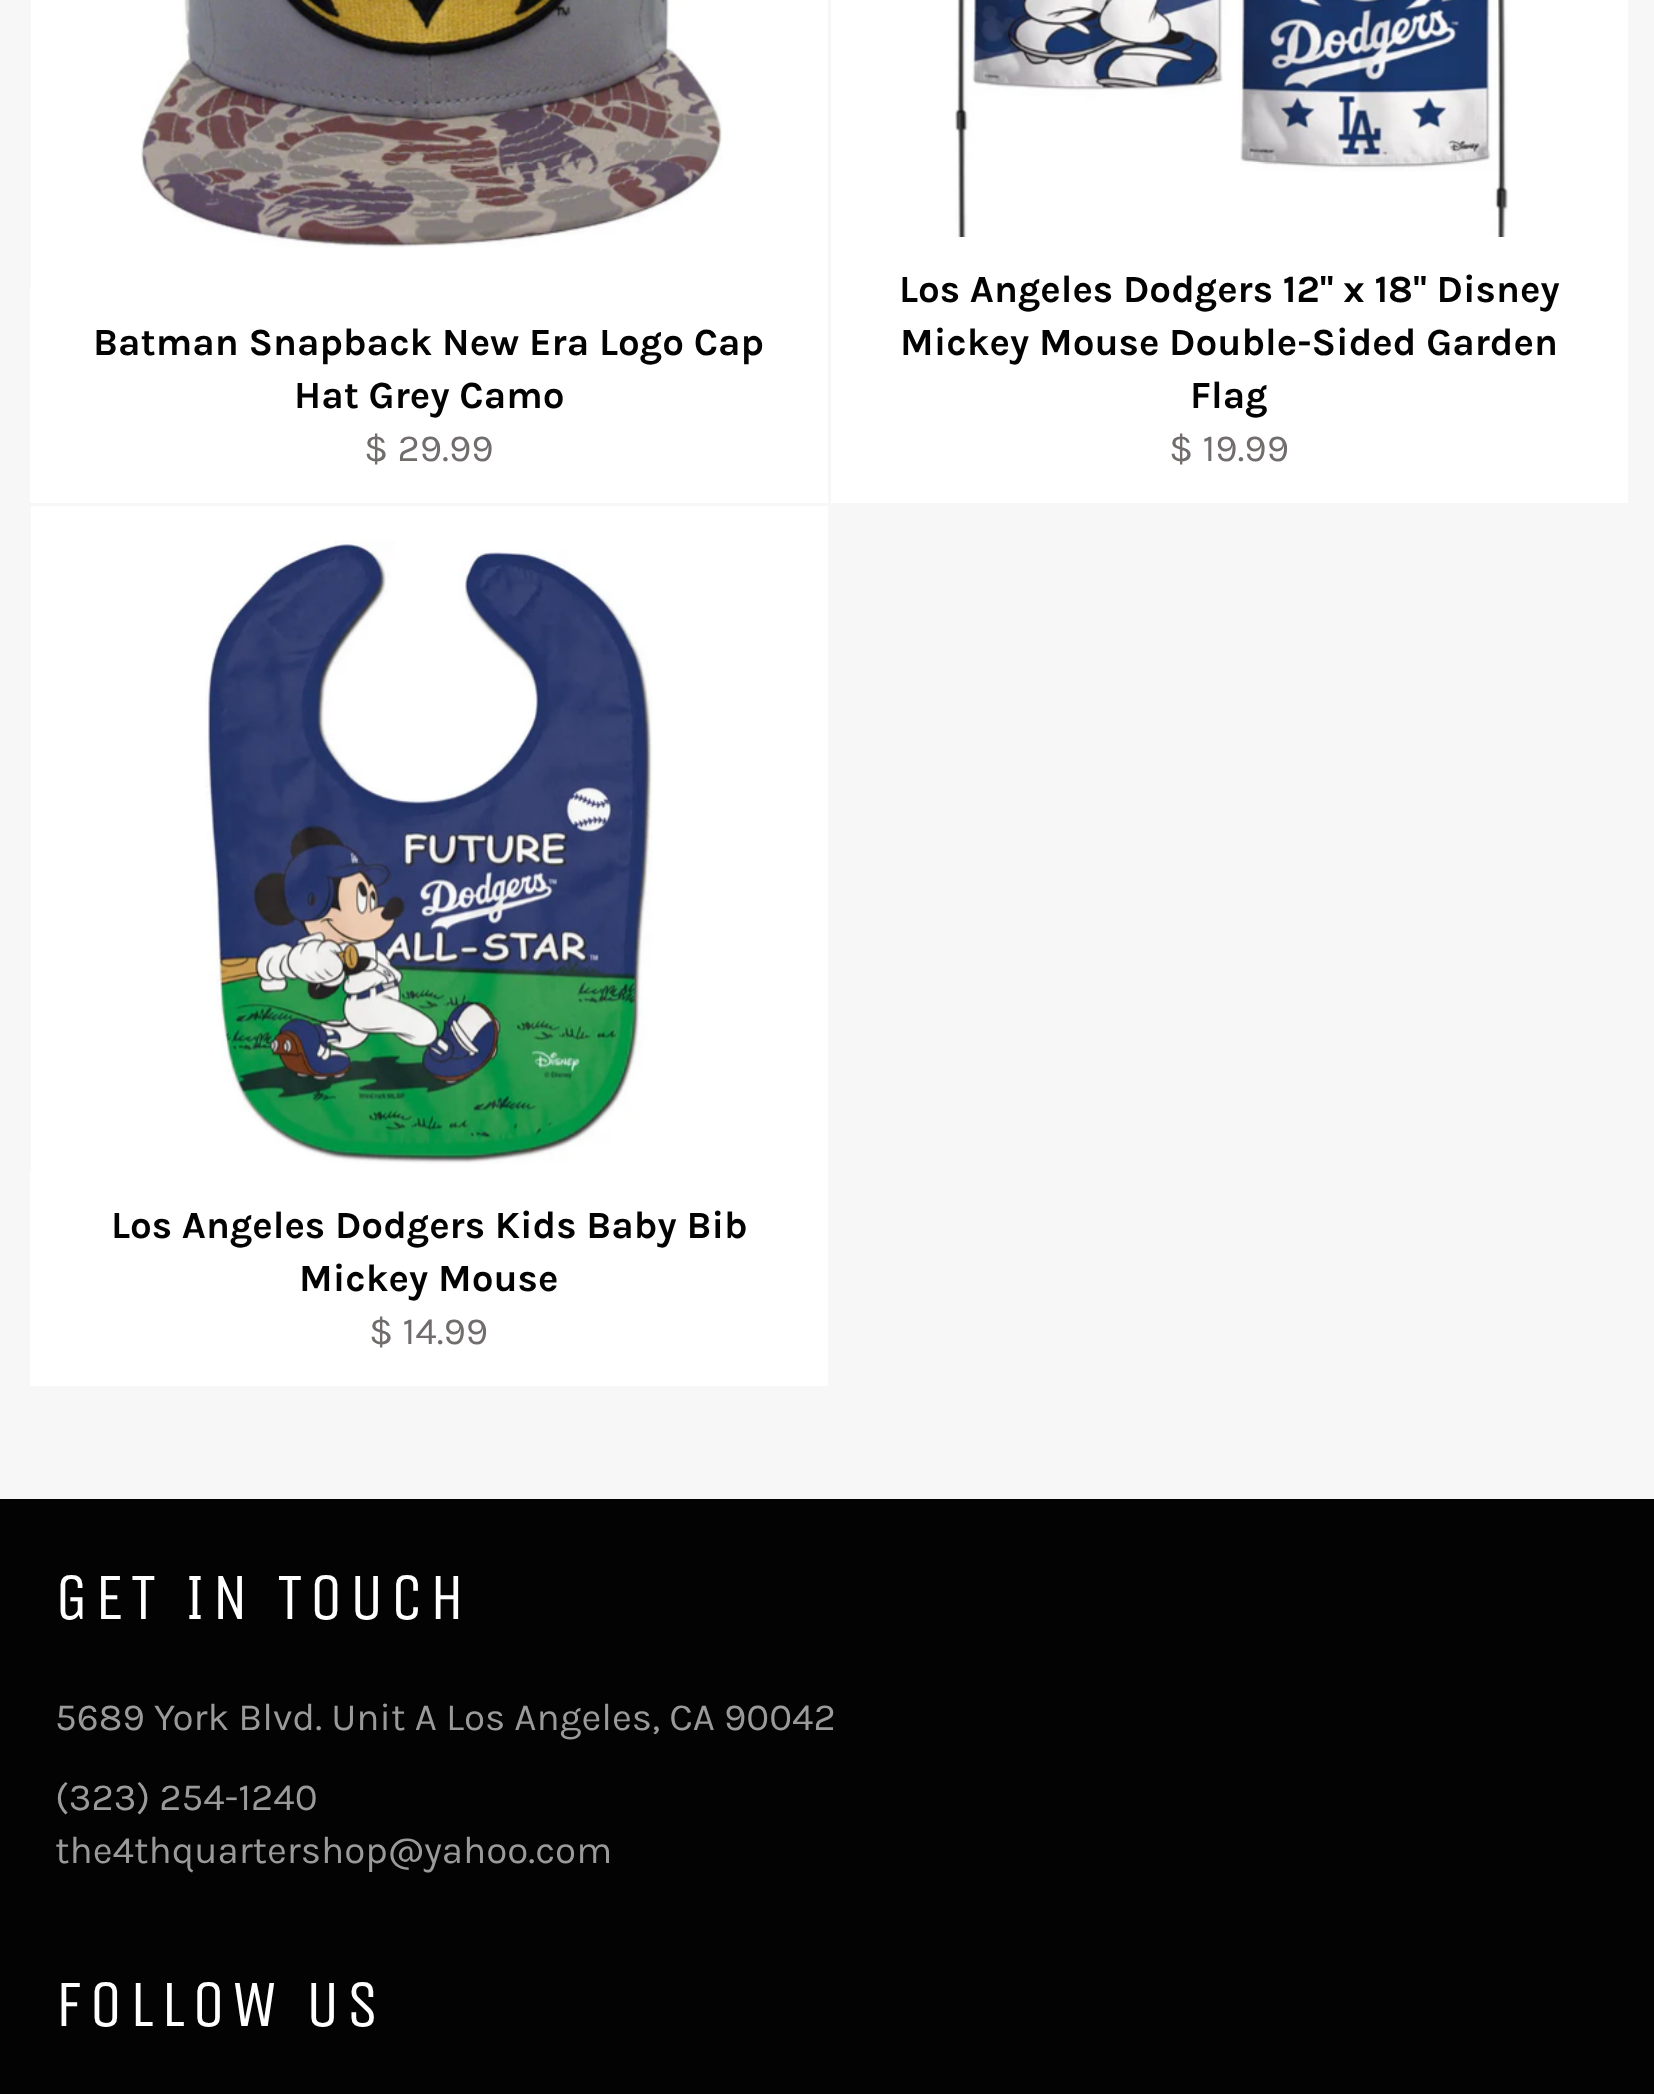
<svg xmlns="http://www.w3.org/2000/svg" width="1654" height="2094">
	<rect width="100%" height="100%" fill="#F7F7F7" />
	<rect x="31" y="0" width="797" height="289" fill="#FFFFFF" />
	<image x="141" y="0" width="582" height="248" href="assets/img1.png" />
	<rect x="30" y="289" width="798" height="214" fill="#FFFFFF" />
	<g font-family="Karla" font-size="38.5" font-weight="700" fill="#030303">
		<text x="93" y="355">Batman Snapback New Era Logo Cap</text>
		<text x="294" y="408">Hat Grey Camo</text>
	</g>
	<text x="364" y="461" font-family="Karla" font-size="38.5" fill="#726D6D">$ 29.99</text>
	<rect x="831" y="0" width="797" height="503" fill="#FFFFFF" />
	<image x="955" y="0" width="554" height="237" href="assets/img2.png" />
	<g font-family="Karla" font-size="38.5" font-weight="700" fill="#030303">
		<text x="899" y="302">Los Angeles Dodgers 12'' x 18'' Disney</text>
		<text x="900" y="355">Mickey Mouse Double-Sided Garden</text>
		<text x="1190" y="408">Flag</text>
	</g>
	<text x="1169" y="461" font-family="Karla" font-size="38.5" fill="#726D6D">$ 19.99</text>
	<rect x="31" y="506" width="797" height="666" fill="#FFFFFF" />
	<image x="205" y="540" width="448" height="624" href="assets/img3.png" />
	<rect x="30" y="1172" width="798" height="214" fill="#FFFFFF" />
	<g font-family="Karla" font-size="38.5" font-weight="700" fill="#030303">
		<text x="111" y="1238">Los Angeles Dodgers Kids Baby Bib</text>
		<text x="299" y="1291">Mickey Mouse</text>
	</g>
	<text x="369" y="1344" font-family="Karla" font-size="38.5" fill="#726D6D">$ 14.99</text>
	<rect x="0" y="1499" width="1654" height="595" fill="#030303" />
	<text x="55" y="1619" font-family="Unica One" font-size="66" letter-spacing="6.6" fill="#FFFFFF">GET IN TOUCH</text>
	<g font-family="Karla" font-size="38.5" fill="#9A9A9A">
		<text x="55" y="1730">5689 York Blvd. Unit A Los Angeles, CA 90042</text>
		<text x="55" y="1810">(323) 254-1240</text>
		<text x="55" y="1863">the4thquartershop@yahoo.com</text>
	</g>
	<text x="55" y="2026" font-family="Unica One" font-size="66" letter-spacing="6.6" fill="#FFFFFF">FOLLOW US</text>
</svg>
